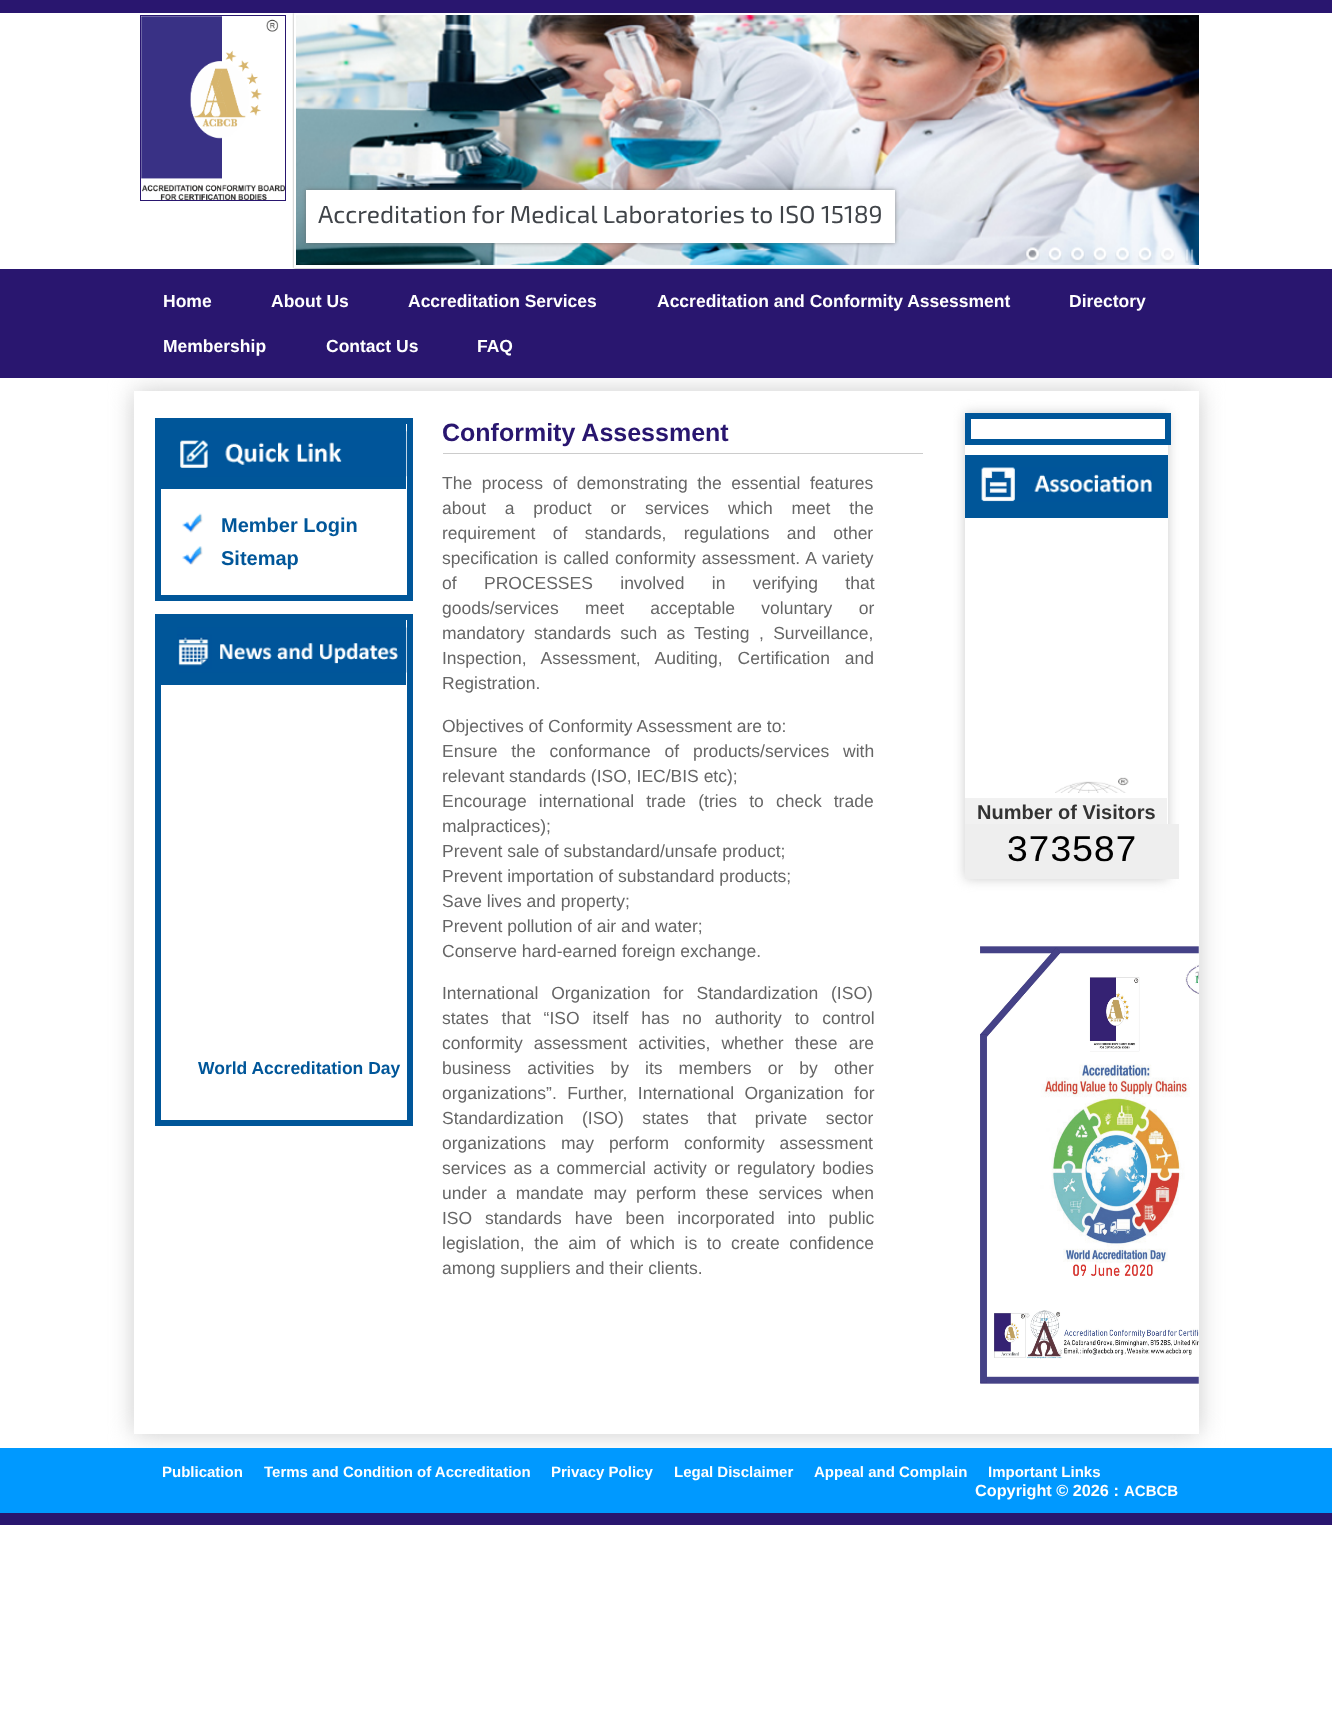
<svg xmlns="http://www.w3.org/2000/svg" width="1332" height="1710">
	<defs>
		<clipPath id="clip1"><path d="M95 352H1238V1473H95ZM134 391H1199V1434H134Z" clip-rule="evenodd" /></clipPath>
		<clipPath id="clip2"><rect x="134" y="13" width="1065" height="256" /></clipPath>
		<clipPath id="clip3"><rect x="134" y="13" width="1065" height="256" /></clipPath>
		<clipPath id="clip4"><path d="M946 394H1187V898H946ZM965 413H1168V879H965Z" clip-rule="evenodd" /></clipPath>
	</defs>
	<rect width="100%" height="100%" fill="#FFFFFF" />
	<rect x="0" y="0" width="1332" height="13" fill="#29166F" />
	<rect x="140.5" y="15.5" width="145" height="185" fill="none" stroke="#29166F" />
	<image x="141" y="16" width="144" height="184" href="assets/img1.png" />
	<g clip-path="url(#clip1)">
		<rect x="134" y="391" width="1065" height="1043" fill="#CCCCCC" filter="blur(12.5px)" />
	</g>
	<rect x="0" y="269" width="1332" height="109" fill="#29166F" />
	<g clip-path="url(#clip2)">
		<rect x="294" y="13" width="910" height="255" fill="#646464" fill-opacity="0.7" filter="blur(1px)" />
	</g>
	<g clip-path="url(#clip3)">
		<rect x="295.5" y="14.5" width="907" height="252" fill="none" stroke="#FFFFFF" stroke-width="3" />
	</g>
	<image x="296" y="15" width="903" height="250" href="assets/img2.png" />
	<rect x="306" y="190" width="589" height="53" fill="#646464" fill-opacity="0.7" filter="blur(2px)" />
	<rect x="306" y="190" width="589" height="53" fill="#FFFFFF" />
	<text x="318" y="223" font-family="'Exo 2'" font-size="24.6" fill="#404449">Accreditation for Medical Laboratories to ISO 15189</text>
	<image x="1025" y="247" width="15" height="16" href="assets/img3.png" />
	<image x="1048" y="247" width="14" height="16" href="assets/img4.png" />
	<image x="1070" y="247" width="15" height="16" href="assets/img5.png" />
	<image x="1093" y="247" width="14" height="16" href="assets/img6.png" />
	<image x="1115" y="247" width="15" height="16" href="assets/img7.png" />
	<image x="1138" y="247" width="14" height="16" href="assets/img8.png" />
	<image x="1160" y="248" width="15" height="15" href="assets/img9.png" />
	<image x="1185" y="248" width="9" height="15" href="assets/img10.png" />
	<g font-family="Liberation Sans" font-size="17.5" font-weight="700" fill="#FFFFFF">
		<text x="163" y="307">Home</text>
		<text x="271" y="307">About Us</text>
		<text x="408" y="307">Accreditation Services</text>
		<text x="657" y="307">Accreditation and Conformity Assessment</text>
		<text x="1069" y="307">Directory</text>
		<text x="163" y="352">Membership</text>
		<text x="326" y="352">Contact Us</text>
		<text x="477" y="352">FAQ</text>
	</g>
	<rect x="158" y="421" width="252" height="177" fill="none" stroke="#005699" stroke-width="6" />
	<rect x="161" y="424" width="245" height="65" fill="#005699" />
	<image x="180" y="431" width="227" height="46" href="assets/img11.png" />
	<image x="182" y="513" width="21" height="20" href="assets/img12.png" />
	<text x="221" y="532" font-family="Liberation Sans" font-size="20" font-weight="700" fill="#005699">Member Login</text>
	<image x="182" y="546" width="21" height="19" href="assets/img13.png" />
	<text x="221" y="565" font-family="Liberation Sans" font-size="20" font-weight="700" fill="#005699">Sitemap</text>
	<rect x="158" y="617" width="252" height="506" fill="none" stroke="#005699" stroke-width="6" />
	<rect x="161" y="620" width="245" height="65" fill="#005699" />
	<image x="177" y="627" width="230" height="46" href="assets/img14.png" />
	<text x="198" y="1074" font-family="Liberation Sans" font-size="17.5" font-weight="700" fill="#005699">World Accreditation Day</text>
	<rect x="443" y="453" width="480" height="1" fill="#CCCCCC" />
	<text x="442" y="441" font-family="Liberation Sans" font-size="25" font-weight="700" fill="#29166F">Conformity Assessment</text>
	<g font-family="Liberation Sans" font-size="17.5" fill="#666666">
		<text x="442" y="489" word-spacing="4.75">The process of demonstrating the essential features</text>
		<text x="442" y="514" word-spacing="14">about a product or services which meet the</text>
		<text x="442" y="539" word-spacing="12.5">requirement of standards, regulations and other</text>
		<text x="442" y="564" word-spacing="1.25">specification is called conformity assessment. A variety</text>
		<text x="442" y="589" word-spacing="22.5">of PROCESSES involved in verifying that</text>
		<text x="442" y="614" word-spacing="21.5">goods/services meet acceptable voluntary or</text>
		<text x="442" y="639" word-spacing="4.5">mandatory standards such as Testing , Surveillance,</text>
		<text x="442" y="664" word-spacing="10">Inspection, Assessment, Auditing, Certification and</text>
		<text x="442" y="689">Registration.</text>
		<text x="442" y="732">Objectives of Conformity Assessment are to:</text>
		<text x="442" y="757" word-spacing="9">Ensure the conformance of products/services with</text>
		<text x="442" y="782">relevant standards (ISO, IEC/BIS etc);</text>
		<text x="442" y="807" word-spacing="7.25">Encourage international trade (tries to check trade</text>
		<text x="442" y="832">malpractices);</text>
		<text x="442" y="857">Prevent sale of substandard/unsafe product;</text>
		<text x="442" y="882">Prevent importation of substandard products;</text>
		<text x="442" y="907">Save lives and property;</text>
		<text x="442" y="932">Prevent pollution of air and water;</text>
		<text x="442" y="957">Conserve hard-earned foreign exchange.</text>
		<text x="442" y="999" word-spacing="8">International Organization for Standardization (ISO)</text>
		<text x="442" y="1024" word-spacing="8">states that “ISO itself has no authority to control</text>
		<text x="442" y="1049" word-spacing="6.25">conformity assessment activities, whether these are</text>
		<text x="442" y="1074" word-spacing="11.25">business activities by its members or by other</text>
		<text x="442" y="1099" word-spacing="5.5">organizations”. Further, International Organization for</text>
		<text x="442" y="1124" word-spacing="13.5">Standardization (ISO) states that private sector</text>
		<text x="442" y="1149" word-spacing="10">organizations may perform conformity assessment</text>
		<text x="442" y="1174" word-spacing="2.5">services as a commercial activity or regulatory bodies</text>
		<text x="442" y="1199" word-spacing="4.75">under a mandate may perform these services when</text>
		<text x="442" y="1224" word-spacing="8">ISO standards have been incorporated into public</text>
		<text x="442" y="1249" word-spacing="4.75">legislation, the aim of which is to create confidence</text>
		<text x="442" y="1274">among suppliers and their clients.</text>
	</g>
	<g clip-path="url(#clip4)">
		<rect x="965" y="413" width="203" height="466" fill="#CCCCCC" filter="blur(6px)" />
	</g>
	<rect x="968" y="416" width="200" height="26" fill="none" stroke="#005699" stroke-width="6" />
	<rect x="965" y="455" width="203" height="63" fill="#005699" />
	<image x="981" y="467" width="171" height="35" href="assets/img15.png" />
	<image x="1055" y="777" width="74" height="16" href="assets/img16.png" />
	<rect x="965" y="798" width="202" height="26" fill="#F1F1F1" />
	<text x="977" y="819" font-family="Liberation Sans" font-size="20" font-weight="700" fill="#333333">Number of Visitors</text>
	<rect x="965" y="824" width="214" height="55" fill="#EEEEEE" />
	<text x="1006" y="861" font-family="Liberation Mono" font-size="37.5" letter-spacing="-0.75" fill="#000000">373587</text>
	<image x="980" y="946" width="219" height="438" href="assets/img17.png" />
	<rect x="0" y="1448" width="1332" height="65" fill="#0099FF" />
	<rect x="0" y="1513" width="1332" height="12" fill="#29166F" />
	<g font-family="Liberation Sans" font-size="15" font-weight="700" fill="#FFFFFF">
		<text x="162" y="1477">Publication</text>
		<text x="264" y="1477">Terms and Condition of Accreditation</text>
		<text x="551" y="1477">Privacy Policy</text>
		<text x="674" y="1477">Legal Disclaimer</text>
		<text x="814" y="1477">Appeal and Complain</text>
		<text x="988" y="1477">Important Links</text>
	</g>
	<text x="975" y="1496" font-family="Liberation Sans" font-size="16.25" font-weight="700" fill="#FFFFFF">Copyright © 2026 :</text>
	<text x="1124" y="1496" font-family="Liberation Sans" font-size="15" font-weight="700" fill="#FFFFFF">ACBCB</text>
</svg>
